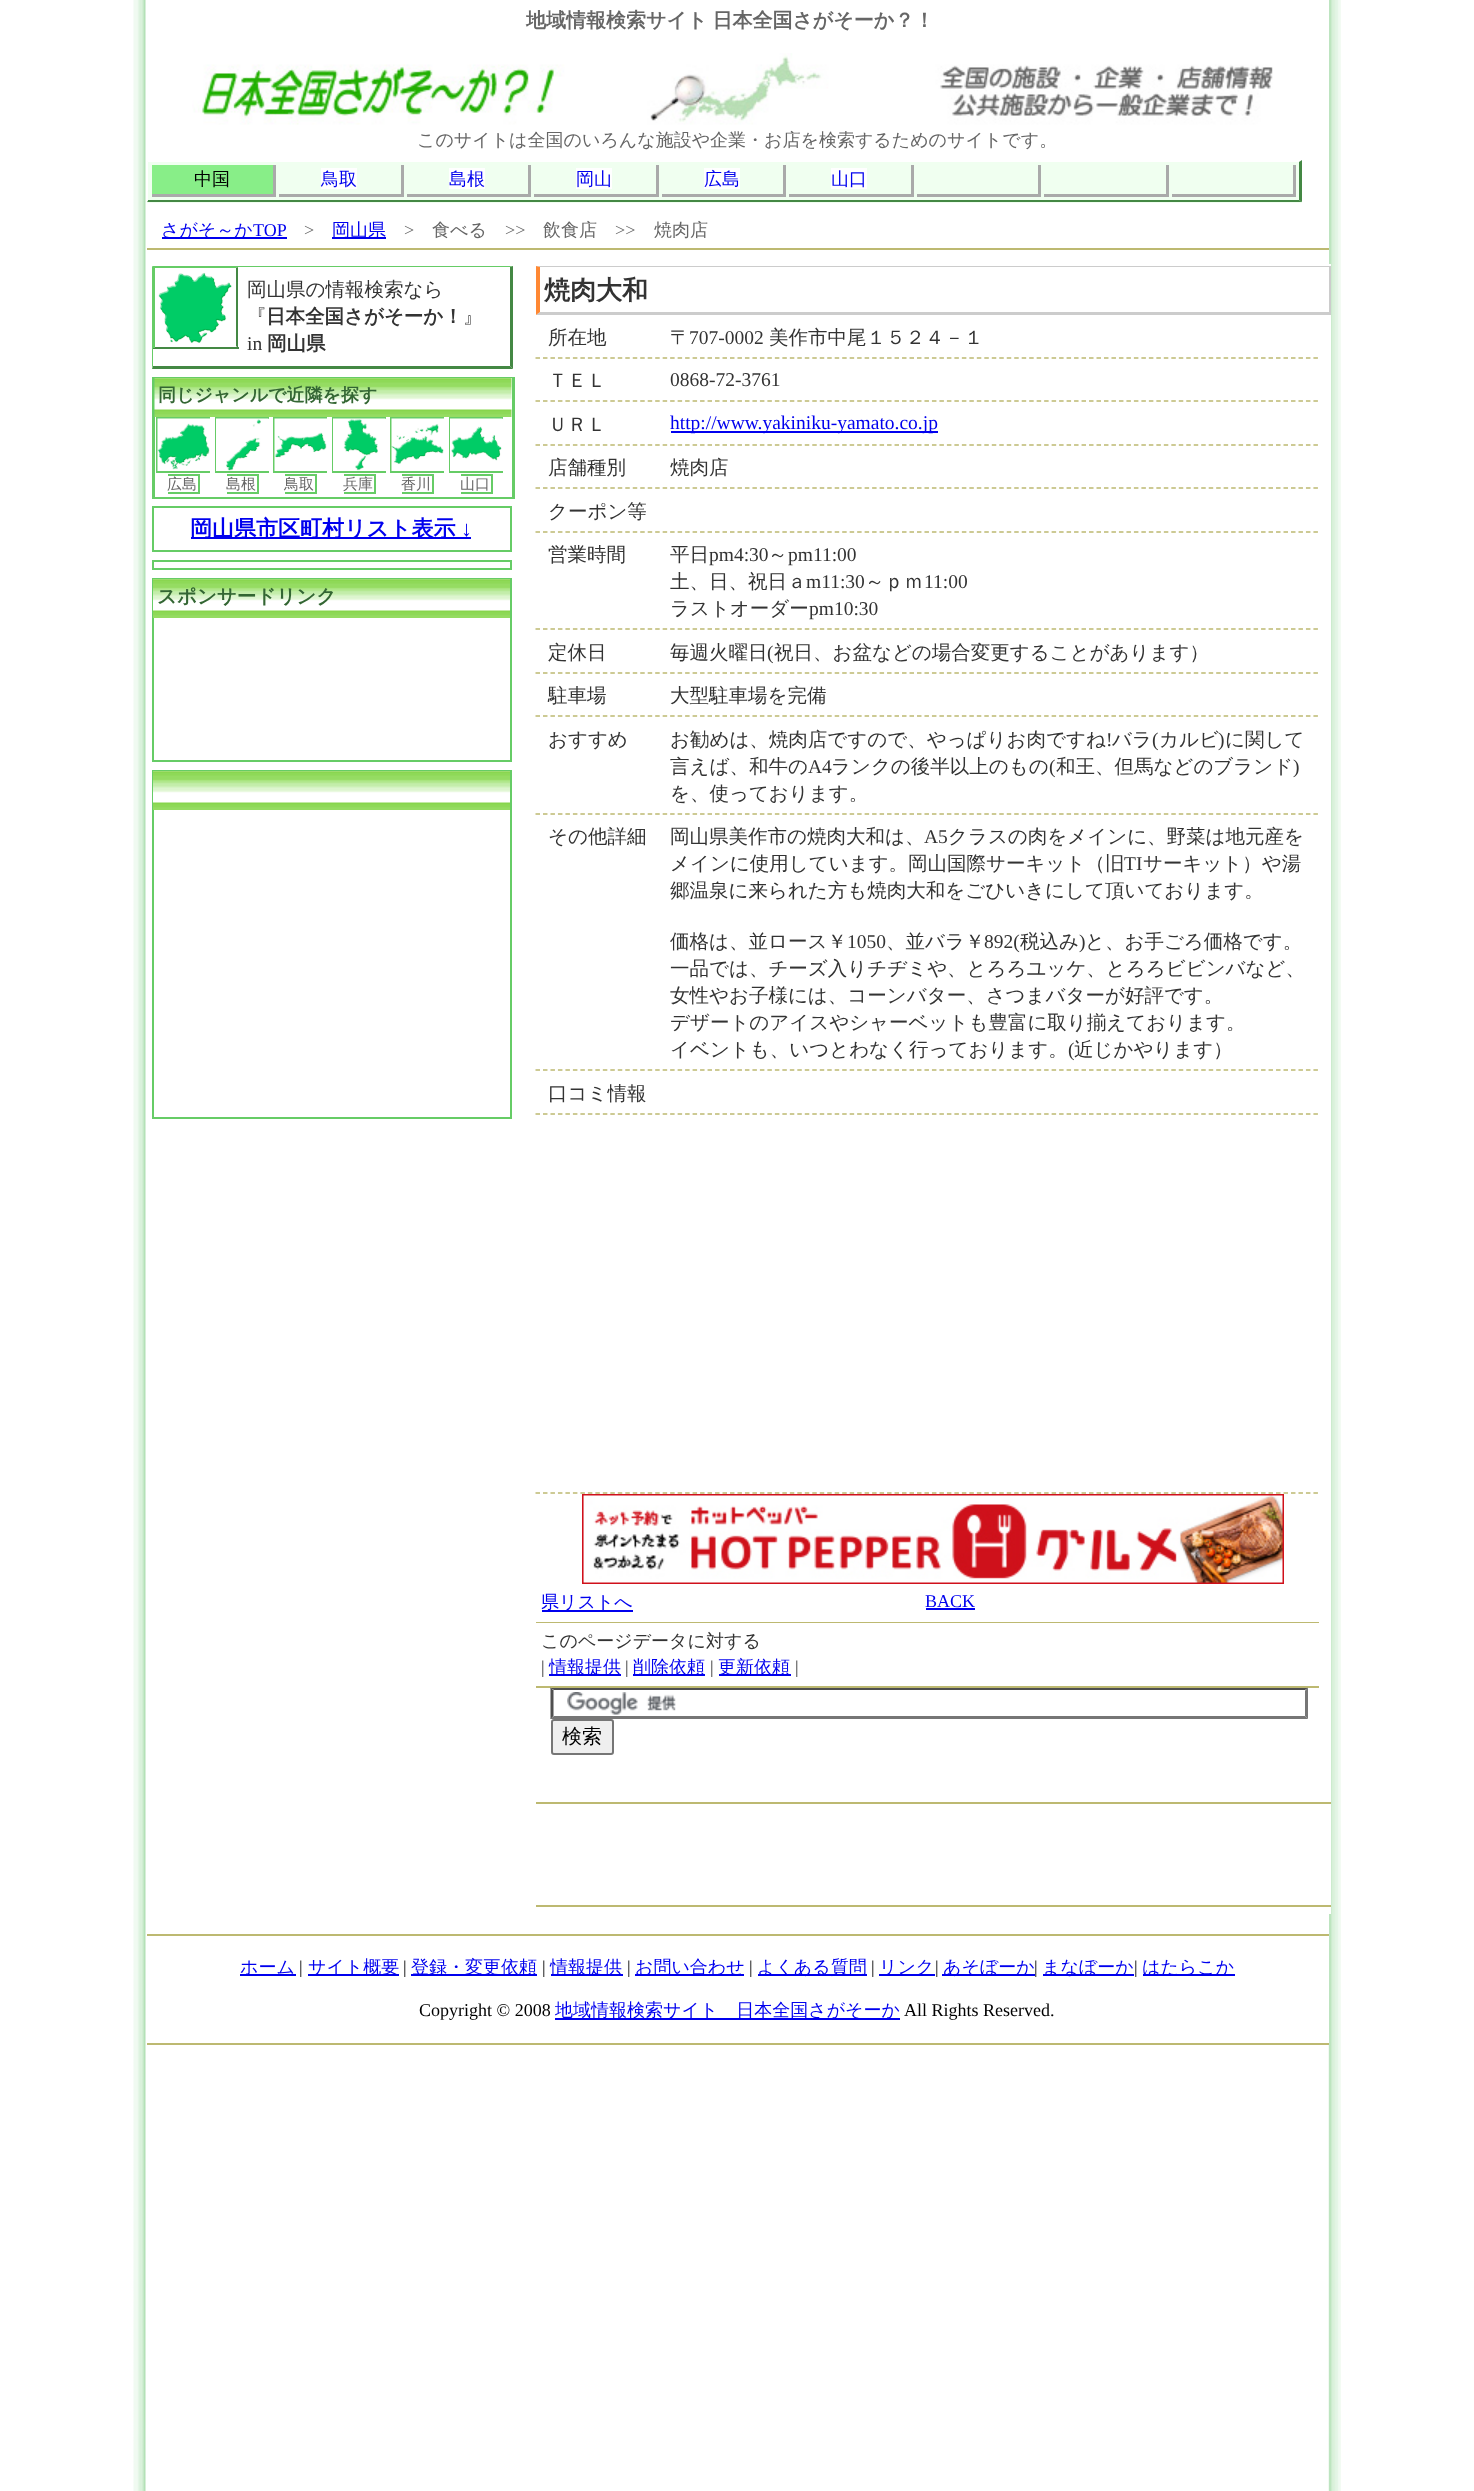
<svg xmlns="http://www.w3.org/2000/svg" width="1474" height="2491">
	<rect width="100%" height="100%" fill="#FFFFFF" />
	<image x="133" y="0" width="1208" height="2491" href="assets/img1.png" />
	<rect x="1328" y="0" width="1" height="2043" fill="#FFFFFF" />
	<text x="526" y="27" word-spacing="-1" font-family="WenQuanYi Zen Hei" font-size="20" font-weight="700" fill="#666666">地域情報検索サイト 日本全国さがそーか？！</text>
	<image x="192" y="53" width="1081" height="72" href="assets/img2.png" />
	<text x="417" y="146" font-family="WenQuanYi Zen Hei" font-size="18" font-weight="500" fill="#666666">このサイトは全国のいろんな施設や企業・お店を検索するためのサイトです。</text>
	<rect x="147" y="161" width="1155" height="42" fill="#F0FFF0" />
	<path d="M147 160H1302L1299 162H148Z" fill="#FFFFFF" />
	<path d="M1302 160V202L1299 200V162Z" fill="#448844" />
	<path d="M1302 202H147L148 200H1299Z" fill="#448844" />
	<path d="M147 202V160L148 162V200Z" fill="#FFFFFF" />
	<rect x="152" y="165" width="121" height="29" fill="#88EE88" />
	<rect x="273" y="165" width="3" height="32" fill="#AAAAAA" />
	<rect x="152" y="194" width="124" height="3" fill="#AAAAAA" />
	<text x="194" y="185" font-family="WenQuanYi Zen Hei" font-size="18" font-weight="500" fill="#000000">中国</text>
	<rect x="401" y="165" width="3" height="32" fill="#AAAAAA" />
	<rect x="279" y="194" width="125" height="3" fill="#AAAAAA" />
	<rect x="321" y="168" width="36" height="21" fill="#FFFFFF" />
	<text x="321" y="185" font-family="WenQuanYi Zen Hei" font-size="18" font-weight="500" fill="#0000EE">鳥取</text>
	<rect x="528" y="165" width="3" height="32" fill="#AAAAAA" />
	<rect x="407" y="194" width="124" height="3" fill="#AAAAAA" />
	<rect x="449" y="168" width="36" height="21" fill="#FFFFFF" />
	<text x="449" y="185" font-family="WenQuanYi Zen Hei" font-size="18" font-weight="500" fill="#0000EE">島根</text>
	<rect x="656" y="165" width="3" height="32" fill="#AAAAAA" />
	<rect x="534" y="194" width="125" height="3" fill="#AAAAAA" />
	<rect x="576" y="168" width="36" height="21" fill="#FFFFFF" />
	<text x="576" y="185" font-family="WenQuanYi Zen Hei" font-size="18" font-weight="500" fill="#0000EE">岡山</text>
	<rect x="783" y="165" width="3" height="32" fill="#AAAAAA" />
	<rect x="662" y="194" width="124" height="3" fill="#AAAAAA" />
	<rect x="704" y="168" width="36" height="21" fill="#FFFFFF" />
	<text x="704" y="185" font-family="WenQuanYi Zen Hei" font-size="18" font-weight="500" fill="#0000EE">広島</text>
	<rect x="911" y="165" width="3" height="32" fill="#AAAAAA" />
	<rect x="789" y="194" width="125" height="3" fill="#AAAAAA" />
	<rect x="831" y="168" width="36" height="21" fill="#FFFFFF" />
	<text x="831" y="185" font-family="WenQuanYi Zen Hei" font-size="18" font-weight="500" fill="#0000EE">山口</text>
	<rect x="1038" y="165" width="3" height="32" fill="#AAAAAA" />
	<rect x="917" y="194" width="124" height="3" fill="#AAAAAA" />
	<rect x="1166" y="165" width="3" height="32" fill="#AAAAAA" />
	<rect x="1044" y="194" width="125" height="3" fill="#AAAAAA" />
	<rect x="1293" y="165" width="3" height="32" fill="#AAAAAA" />
	<rect x="1172" y="194" width="124" height="3" fill="#AAAAAA" />
	<rect x="147" y="248" width="1182" height="2" fill="#BDB971" />
	<rect x="162" y="237" width="125" height="2" fill="#0000EE" />
	<text x="161" y="236" font-family="WenQuanYi Zen Hei" font-size="18" font-weight="500" fill="#0000EE">さがそ～か</text>
	<text x="253" y="236" font-family="Liberation Serif" font-size="18" fill="#0000EE">TOP</text>
	<text x="304" y="236" font-family="Liberation Serif" font-size="18" fill="#666666">&gt;</text>
	<rect x="332" y="237" width="54" height="2" fill="#0000EE" />
	<text x="332" y="236" font-family="WenQuanYi Zen Hei" font-size="18" font-weight="500" fill="#0000EE">岡山県</text>
	<text x="404" y="236" font-family="Liberation Serif" font-size="18" fill="#666666">&gt;</text>
	<text x="432" y="236" font-family="WenQuanYi Zen Hei" font-size="18" font-weight="500" fill="#666666">食べる</text>
	<text x="505" y="236" font-family="Liberation Serif" font-size="18" fill="#666666">&gt;&gt;</text>
	<text x="543" y="236" font-family="WenQuanYi Zen Hei" font-size="18" font-weight="500" fill="#666666">飲食店</text>
	<text x="615" y="236" font-family="Liberation Serif" font-size="18" fill="#666666">&gt;&gt;</text>
	<text x="654" y="236" font-family="WenQuanYi Zen Hei" font-size="18" font-weight="500" fill="#666666">焼肉店</text>
	<path d="M152 266H513L510 267H153Z" fill="#66CC66" />
	<path d="M513 266V369L510 366V267Z" fill="#448844" />
	<path d="M513 369H152L153 366H510Z" fill="#448844" />
	<path d="M152 369V266L153 267V366Z" fill="#66CC66" />
	<path d="M153 267H238L236 268H154Z" fill="#66CC66" />
	<path d="M238 267V348L236 346V268Z" fill="#448844" />
	<rect x="153" y="347" width="86" height="2" fill="#448844" />
	<rect x="153" y="267" width="2" height="81" fill="#66CC66" />
	<image x="158" y="272" width="74" height="71" href="assets/img3.png" />
	<g font-family="WenQuanYi Zen Hei" font-size="19.5" font-weight="500" fill="#333333">
		<text x="247" y="296">岡山県の情報検索なら</text>
		<text x="247" y="323">『</text>
	</g>
	<text x="266" y="323" font-family="WenQuanYi Zen Hei" font-size="19.5" font-weight="700" fill="#333333">日本全国さがそーか！</text>
	<text x="463" y="323" font-family="WenQuanYi Zen Hei" font-size="19.5" font-weight="500" fill="#333333">』</text>
	<text x="247" y="350" font-family="Liberation Serif" font-size="19.5" fill="#333333">in</text>
	<text x="267" y="350" font-family="WenQuanYi Zen Hei" font-size="19.5" font-weight="700" fill="#333333">岡山県</text>
	<rect x="152" y="377" width="363" height="1" fill="#66CC66" />
	<rect x="512" y="377" width="3" height="121" fill="#66CC66" />
	<rect x="152" y="497" width="363" height="2" fill="#66CC66" />
	<rect x="152" y="377" width="3" height="121" fill="#66CC66" />
	<image x="154" y="378" width="358" height="39" href="assets/img4.png" />
	<text x="158" y="401" font-family="WenQuanYi Zen Hei" font-size="18" font-weight="700" fill="#336633">同じジャンルで近隣を探す</text>
	<rect x="156" y="417" width="54" height="2" fill="#66CC66" />
	<rect x="156" y="471" width="54" height="2" fill="#66CC66" />
	<rect x="156" y="417" width="2" height="56" fill="#66CC66" />
	<image x="157" y="418" width="53" height="53" href="assets/img5.png" />
	<text x="167" y="489" font-family="WenQuanYi Zen Hei" font-size="15" font-weight="500" fill="#666666">広島</text>
	<rect x="168" y="474" width="32" height="2" fill="#66CC66" />
	<rect x="198" y="474" width="2" height="20" fill="#66CC66" />
	<rect x="168" y="492" width="32" height="2" fill="#66CC66" />
	<rect x="215" y="417" width="54" height="2" fill="#66CC66" />
	<rect x="215" y="471" width="54" height="2" fill="#66CC66" />
	<rect x="215" y="417" width="2" height="56" fill="#66CC66" />
	<image x="216" y="418" width="53" height="53" href="assets/img6.png" />
	<text x="226" y="489" font-family="WenQuanYi Zen Hei" font-size="15" font-weight="500" fill="#666666">島根</text>
	<rect x="227" y="474" width="31" height="2" fill="#66CC66" />
	<rect x="257" y="474" width="2" height="20" fill="#66CC66" />
	<rect x="227" y="492" width="31" height="2" fill="#66CC66" />
	<rect x="273" y="417" width="54" height="2" fill="#66CC66" />
	<rect x="273" y="471" width="54" height="2" fill="#66CC66" />
	<rect x="273" y="417" width="2" height="56" fill="#66CC66" />
	<image x="274" y="418" width="53" height="53" href="assets/img7.png" />
	<text x="284" y="489" font-family="WenQuanYi Zen Hei" font-size="15" font-weight="500" fill="#666666">鳥取</text>
	<rect x="285" y="474" width="32" height="2" fill="#66CC66" />
	<rect x="315" y="474" width="2" height="20" fill="#66CC66" />
	<rect x="285" y="492" width="32" height="2" fill="#66CC66" />
	<rect x="332" y="417" width="54" height="2" fill="#66CC66" />
	<rect x="332" y="471" width="54" height="2" fill="#66CC66" />
	<rect x="332" y="417" width="2" height="56" fill="#66CC66" />
	<image x="333" y="418" width="53" height="53" href="assets/img8.png" />
	<text x="343" y="489" font-family="WenQuanYi Zen Hei" font-size="15" font-weight="500" fill="#666666">兵庫</text>
	<rect x="344" y="474" width="31" height="2" fill="#66CC66" />
	<rect x="374" y="474" width="2" height="20" fill="#66CC66" />
	<rect x="344" y="492" width="31" height="2" fill="#66CC66" />
	<rect x="390" y="417" width="54" height="2" fill="#66CC66" />
	<rect x="390" y="471" width="54" height="2" fill="#66CC66" />
	<rect x="390" y="417" width="2" height="56" fill="#66CC66" />
	<image x="391" y="418" width="53" height="53" href="assets/img9.png" />
	<text x="401" y="489" font-family="WenQuanYi Zen Hei" font-size="15" font-weight="500" fill="#666666">香川</text>
	<rect x="402" y="474" width="32" height="2" fill="#66CC66" />
	<rect x="432" y="474" width="2" height="20" fill="#66CC66" />
	<rect x="402" y="492" width="32" height="2" fill="#66CC66" />
	<rect x="449" y="417" width="54" height="2" fill="#66CC66" />
	<rect x="449" y="471" width="54" height="2" fill="#66CC66" />
	<rect x="449" y="417" width="2" height="56" fill="#66CC66" />
	<image x="450" y="418" width="53" height="53" href="assets/img10.png" />
	<text x="460" y="489" font-family="WenQuanYi Zen Hei" font-size="15" font-weight="500" fill="#666666">山口</text>
	<rect x="461" y="474" width="31" height="2" fill="#66CC66" />
	<rect x="491" y="474" width="2" height="20" fill="#66CC66" />
	<rect x="461" y="492" width="31" height="2" fill="#66CC66" />
	<rect x="153" y="507" width="358" height="44" fill="none" stroke="#66CC66" stroke-width="2" />
	<rect x="191" y="537" width="280" height="2" fill="#0000EE" />
	<text x="190" y="536" font-family="WenQuanYi Zen Hei" font-size="22" font-weight="700" fill="#0000EE">岡山県市区町村リスト表示</text>
	<text x="461" y="536" font-family="Liberation Serif" font-size="22" font-weight="700" fill="#0000EE">↓</text>
	<rect x="153" y="561" width="358" height="8" fill="none" stroke="#66CC66" stroke-width="2" />
	<rect x="153" y="579" width="358" height="182" fill="none" stroke="#66CC66" stroke-width="2" />
	<image x="153" y="579" width="357" height="39" href="assets/img11.png" />
	<text x="157" y="603" font-family="WenQuanYi Zen Hei" font-size="19.5" font-weight="700" fill="#336633">スポンサードリンク</text>
	<rect x="153" y="771" width="358" height="347" fill="none" stroke="#66CC66" stroke-width="2" />
	<image x="153" y="771" width="357" height="39" href="assets/img11.png" />
	<rect x="1329" y="264" width="2" height="1650" fill="#FFFFFF" />
	<path d="M536 266H1330L1329 267H540Z" fill="#CCCCCC" />
	<rect x="1329" y="266" width="2" height="49" fill="#CCCCCC" />
	<path d="M1330 315H536L540 312H1329Z" fill="#CCCCCC" />
	<path d="M536 315V266L540 267V312Z" fill="#FF8833" />
	<text x="544" y="299" font-family="WenQuanYi Zen Hei" font-size="26" font-weight="700" fill="#333333">焼肉大和</text>
	<path d="M535.5 358H1318.5" fill="none" stroke="#BDB971" stroke-width="1.5" stroke-dasharray="4.5 2.98" />
	<g font-family="WenQuanYi Zen Hei" font-size="19.5" font-weight="500" fill="#333333">
		<text x="548" y="344">所在地</text>
		<text x="670" y="344">〒</text>
	</g>
	<text x="689" y="344" font-family="Liberation Serif" font-size="19.5" fill="#333333">707-0002</text>
	<text x="769" y="344" font-family="WenQuanYi Zen Hei" font-size="19.5" font-weight="500" fill="#333333">美作市中尾１５２４－１</text>
	<path d="M535.5 401H1318.5" fill="none" stroke="#BDB971" stroke-width="1.5" stroke-dasharray="4.5 2.98" />
	<text x="548" y="387" font-family="WenQuanYi Zen Hei" font-size="19.5" font-weight="500" fill="#333333">ＴＥＬ</text>
	<text x="670" y="386" font-family="Liberation Serif" font-size="19.5" fill="#333333">0868-72-3761</text>
	<path d="M535.5 445H1318.5" fill="none" stroke="#BDB971" stroke-width="1.5" stroke-dasharray="4.5 2.98" />
	<text x="548" y="431" font-family="WenQuanYi Zen Hei" font-size="19.5" font-weight="500" fill="#333333">ＵＲＬ</text>
	<rect x="671" y="431" width="267" height="2" fill="#0000EE" />
	<text x="670" y="429" font-family="Liberation Serif" font-size="19.5" fill="#0000EE">http://www.yakiniku-yamato.co.jp</text>
	<path d="M535.5 488H1318.5" fill="none" stroke="#BDB971" stroke-width="1.5" stroke-dasharray="4.5 2.98" />
	<g font-family="WenQuanYi Zen Hei" font-size="19.5" font-weight="500" fill="#333333">
		<text x="548" y="474">店舗種別</text>
		<text x="670" y="474">焼肉店</text>
	</g>
	<path d="M535.5 532H1318.5" fill="none" stroke="#BDB971" stroke-width="1.5" stroke-dasharray="4.5 2.98" />
	<text x="548" y="518" font-family="WenQuanYi Zen Hei" font-size="19.5" font-weight="500" fill="#333333">クーポン等</text>
	<path d="M535.5 629H1318.5" fill="none" stroke="#BDB971" stroke-width="1.5" stroke-dasharray="4.5 2.98" />
	<g font-family="WenQuanYi Zen Hei" font-size="19.5" font-weight="500" fill="#333333">
		<text x="548" y="561">営業時間</text>
		<text x="670" y="561">平日</text>
	</g>
	<text x="709" y="561" font-family="Liberation Serif" font-size="19.5" fill="#333333">pm4:30</text>
	<text x="768" y="561" font-family="WenQuanYi Zen Hei" font-size="19.5" font-weight="500" fill="#333333">～</text>
	<text x="788" y="561" font-family="Liberation Serif" font-size="19.5" fill="#333333">pm11:00</text>
	<text x="670" y="588" font-family="WenQuanYi Zen Hei" font-size="19.5" font-weight="500" fill="#333333">土、日、祝日ａ</text>
	<text x="806" y="588" font-family="Liberation Serif" font-size="19.5" fill="#333333">m11:30</text>
	<text x="865" y="588" font-family="WenQuanYi Zen Hei" font-size="19.5" font-weight="500" fill="#333333">～ｐｍ</text>
	<text x="924" y="588" font-family="Liberation Serif" font-size="19.5" fill="#333333">11:00</text>
	<text x="670" y="615" font-family="WenQuanYi Zen Hei" font-size="19.5" font-weight="500" fill="#333333">ラストオーダー</text>
	<text x="809" y="615" font-family="Liberation Serif" font-size="19.5" fill="#333333">pm10:30</text>
	<path d="M535.5 673H1318.5" fill="none" stroke="#BDB971" stroke-width="1.5" stroke-dasharray="4.5 2.98" />
	<g font-family="WenQuanYi Zen Hei" font-size="19.5" font-weight="500" fill="#333333">
		<text x="548" y="659">定休日</text>
		<text x="670" y="659">毎週火曜日</text>
	</g>
	<text x="767" y="659" font-family="Liberation Serif" font-size="19.5" fill="#333333">(</text>
	<text x="774" y="659" font-family="WenQuanYi Zen Hei" font-size="19.5" font-weight="500" fill="#333333">祝日、お盆などの場合変更することがあります）</text>
	<path d="M535.5 716H1318.5" fill="none" stroke="#BDB971" stroke-width="1.5" stroke-dasharray="4.5 2.98" />
	<g font-family="WenQuanYi Zen Hei" font-size="19.5" font-weight="500" fill="#333333">
		<text x="548" y="702">駐車場</text>
		<text x="670" y="702">大型駐車場を完備</text>
	</g>
	<path d="M535.5 814H1318.5" fill="none" stroke="#BDB971" stroke-width="1.5" stroke-dasharray="4.5 2.98" />
	<g font-family="WenQuanYi Zen Hei" font-size="19.5" font-weight="500" fill="#333333">
		<text x="548" y="746">おすすめ</text>
		<text x="670" y="746">お勧めは、焼肉店ですので、やっぱりお肉ですね</text>
	</g>
	<text x="1106" y="746" font-family="Liberation Serif" font-size="19.5" fill="#333333">!</text>
	<text x="1112" y="746" font-family="WenQuanYi Zen Hei" font-size="19.5" font-weight="500" fill="#333333">バラ</text>
	<text x="1152" y="746" font-family="Liberation Serif" font-size="19.5" fill="#333333">(</text>
	<text x="1159" y="746" font-family="WenQuanYi Zen Hei" font-size="19.5" font-weight="500" fill="#333333">カルビ</text>
	<text x="1218" y="746" font-family="Liberation Serif" font-size="19.5" fill="#333333">)</text>
	<g font-family="WenQuanYi Zen Hei" font-size="19.5" font-weight="500" fill="#333333">
		<text x="1225" y="746">に関して</text>
		<text x="670" y="773">言えば、和牛の</text>
	</g>
	<text x="808" y="773" font-family="Liberation Serif" font-size="19.5" fill="#333333">A4</text>
	<text x="831" y="773" font-family="WenQuanYi Zen Hei" font-size="19.5" font-weight="500" fill="#333333">ランクの後半以上のもの</text>
	<text x="1049" y="773" font-family="Liberation Serif" font-size="19.5" fill="#333333">(</text>
	<text x="1056" y="773" font-family="WenQuanYi Zen Hei" font-size="19.5" font-weight="500" fill="#333333">和王、但馬などのブランド</text>
	<text x="1293" y="773" font-family="Liberation Serif" font-size="19.5" fill="#333333">)</text>
	<text x="670" y="800" font-family="WenQuanYi Zen Hei" font-size="19.5" font-weight="500" fill="#333333">を、使っております。</text>
	<path d="M535.5 1070H1318.5" fill="none" stroke="#BDB971" stroke-width="1.5" stroke-dasharray="4.5 2.98" />
	<g font-family="WenQuanYi Zen Hei" font-size="19.5" font-weight="500" fill="#333333">
		<text x="548" y="843">その他詳細</text>
		<text x="670" y="843">岡山県美作市の焼肉大和は、</text>
	</g>
	<text x="924" y="843" font-family="Liberation Serif" font-size="19.5" fill="#333333">A5</text>
	<g font-family="WenQuanYi Zen Hei" font-size="19.5" font-weight="500" fill="#333333">
		<text x="948" y="843">クラスの肉をメインに、野菜は地元産を</text>
		<text x="670" y="870">メインに使用しています。岡山国際サーキット（旧</text>
	</g>
	<text x="1124" y="870" font-family="Liberation Serif" font-size="19.5" fill="#333333">TI</text>
	<g font-family="WenQuanYi Zen Hei" font-size="19.5" font-weight="500" fill="#333333">
		<text x="1143" y="870">サーキット）や湯</text>
		<text x="670" y="897">郷温泉に来られた方も焼肉大和をごひいきにして頂いております。</text>
		<text x="670" y="948">価格は、並ロース￥</text>
	</g>
	<text x="847" y="948" font-family="Liberation Serif" font-size="19.5" fill="#333333">1050</text>
	<text x="886" y="948" font-family="WenQuanYi Zen Hei" font-size="19.5" font-weight="500" fill="#333333">、並バラ￥</text>
	<text x="984" y="948" font-family="Liberation Serif" font-size="19.5" fill="#333333">892(</text>
	<text x="1020" y="948" font-family="WenQuanYi Zen Hei" font-size="19.5" font-weight="500" fill="#333333">税込み</text>
	<text x="1079" y="948" font-family="Liberation Serif" font-size="19.5" fill="#333333">)</text>
	<g font-family="WenQuanYi Zen Hei" font-size="19.5" font-weight="500" fill="#333333">
		<text x="1085" y="948">と、お手ごろ価格です。</text>
		<text x="670" y="975">一品では、チーズ入りチヂミや、とろろユッケ、とろろビビンバなど、</text>
		<text x="670" y="1002">女性やお子様には、コーンバター、さつまバターが好評です。</text>
		<text x="670" y="1029">デザートのアイスやシャーベットも豊富に取り揃えております。</text>
		<text x="670" y="1056">イベントも、いつとわなく行っております。</text>
	</g>
	<text x="1068" y="1056" font-family="Liberation Serif" font-size="19.5" fill="#333333">(</text>
	<text x="1074" y="1056" font-family="WenQuanYi Zen Hei" font-size="19.5" font-weight="500" fill="#333333">近じかやります）</text>
	<path d="M535.5 1114H1318.5" fill="none" stroke="#BDB971" stroke-width="1.5" stroke-dasharray="4.5 2.98" />
	<text x="548" y="1100" font-family="WenQuanYi Zen Hei" font-size="19.5" font-weight="500" fill="#333333">口コミ情報</text>
	<path d="M535.5 1493H1318.5" fill="none" stroke="#BDB971" stroke-width="1.5" stroke-dasharray="4.5 2.98" />
	<image x="582" y="1494" width="702" height="90" href="assets/img12.png" />
	<rect x="536" y="1622" width="783" height="1" fill="#BDB971" />
	<rect x="542" y="1610" width="91" height="2" fill="#0000EE" />
	<text x="541" y="1608" font-family="WenQuanYi Zen Hei" font-size="18" font-weight="500" fill="#0000EE">県リストへ</text>
	<text x="925" y="1607" font-family="Liberation Serif" font-size="18" fill="#0000EE">BACK</text>
	<rect x="926" y="1608" width="49" height="2" fill="#0000EE" />
	<rect x="536" y="1686" width="783" height="2" fill="#BDB971" />
	<text x="541" y="1647" font-family="WenQuanYi Zen Hei" font-size="18" font-weight="500" fill="#333333">このページデータに対する</text>
	<text x="541" y="1673" font-family="Liberation Serif" font-size="18" fill="#333333">|</text>
	<rect x="549" y="1674" width="72" height="2" fill="#0000EE" />
	<text x="549" y="1673" font-family="WenQuanYi Zen Hei" font-size="18" font-weight="500" fill="#0000EE">情報提供</text>
	<text x="625" y="1673" font-family="Liberation Serif" font-size="18" fill="#333333">|</text>
	<rect x="633" y="1674" width="72" height="2" fill="#0000EE" />
	<text x="633" y="1673" font-family="WenQuanYi Zen Hei" font-size="18" font-weight="500" fill="#0000EE">削除依頼</text>
	<text x="710" y="1673" font-family="Liberation Serif" font-size="18" fill="#333333">|</text>
	<rect x="719" y="1674" width="72" height="2" fill="#0000EE" />
	<text x="718" y="1673" font-family="WenQuanYi Zen Hei" font-size="18" font-weight="500" fill="#0000EE">更新依頼</text>
	<text x="795" y="1673" font-family="Liberation Serif" font-size="18" fill="#333333">|</text>
	<rect x="536" y="1802" width="795" height="2" fill="#BDB971" />
	<image x="567" y="1692" width="109" height="23" href="assets/img13.png" />
	<path d="M550 1688H1308L1305 1690H554Z" fill="#4F4F4F" />
	<path d="M1308 1687.5V1719L1305 1716V1690.5Z" fill="#767676" />
	<path d="M1308 1719H550L554 1716H1305Z" fill="#767676" />
	<path d="M550.5 1719V1687.5L553.5 1690.5V1716Z" fill="#4F4F4F" />
	<rect x="552" y="1720" width="61" height="34" rx="2" fill="#EFEFEF" stroke="#767676" stroke-width="2" />
	<text x="562" y="1743" font-family="WenQuanYi Zen Hei" font-size="20" font-weight="500" fill="#000000">検索</text>
	<rect x="536" y="1905" width="795" height="2" fill="#BDB971" />
	<rect x="147" y="1934" width="1182" height="2" fill="#BDB971" />
	<rect x="147" y="2043" width="1182" height="2" fill="#BDB971" />
	<rect x="240" y="1974" width="56" height="2" fill="#0000EE" />
	<text x="240" y="1973" font-family="WenQuanYi Zen Hei" font-size="18" font-weight="500" fill="#0000EE">ホーム</text>
	<text x="299" y="1973" font-family="Liberation Serif" font-size="18" fill="#000000">|</text>
	<rect x="308" y="1974" width="91" height="2" fill="#0000EE" />
	<text x="308" y="1973" font-family="WenQuanYi Zen Hei" font-size="18" font-weight="500" fill="#0000EE">サイト概要</text>
	<text x="403" y="1973" font-family="Liberation Serif" font-size="18" fill="#000000">|</text>
	<rect x="411" y="1974" width="126" height="2" fill="#0000EE" />
	<text x="411" y="1973" font-family="WenQuanYi Zen Hei" font-size="18" font-weight="500" fill="#0000EE">登録・変更依頼</text>
	<text x="542" y="1973" font-family="Liberation Serif" font-size="18" fill="#000000">|</text>
	<rect x="551" y="1974" width="72" height="2" fill="#0000EE" />
	<text x="550" y="1973" font-family="WenQuanYi Zen Hei" font-size="18" font-weight="500" fill="#0000EE">情報提供</text>
	<text x="627" y="1973" font-family="Liberation Serif" font-size="18" fill="#000000">|</text>
	<rect x="635" y="1974" width="109" height="2" fill="#0000EE" />
	<text x="635" y="1973" font-family="WenQuanYi Zen Hei" font-size="18" font-weight="500" fill="#0000EE">お問い合わせ</text>
	<text x="749" y="1973" font-family="Liberation Serif" font-size="18" fill="#000000">|</text>
	<rect x="758" y="1974" width="109" height="2" fill="#0000EE" />
	<text x="757" y="1973" font-family="WenQuanYi Zen Hei" font-size="18" font-weight="500" fill="#0000EE">よくある質問</text>
	<text x="871" y="1973" font-family="Liberation Serif" font-size="18" fill="#000000">|</text>
	<rect x="879" y="1974" width="56" height="2" fill="#0000EE" />
	<text x="879" y="1973" font-family="WenQuanYi Zen Hei" font-size="18" font-weight="500" fill="#0000EE">リンク</text>
	<text x="935" y="1973" font-family="Liberation Serif" font-size="18" fill="#000000">|</text>
	<rect x="942" y="1974" width="93" height="2" fill="#0000EE" />
	<text x="943" y="1973" font-family="WenQuanYi Zen Hei" font-size="18" font-weight="500" fill="#0000EE">あそぼーか</text>
	<text x="1034" y="1973" font-family="Liberation Serif" font-size="18" fill="#000000">|</text>
	<rect x="1043" y="1974" width="91" height="2" fill="#0000EE" />
	<text x="1042" y="1973" font-family="WenQuanYi Zen Hei" font-size="18" font-weight="500" fill="#0000EE">まなぼーか</text>
	<text x="1134" y="1973" font-family="Liberation Serif" font-size="18" fill="#000000">|</text>
	<rect x="1143" y="1974" width="92" height="2" fill="#0000EE" />
	<text x="1142" y="1973" font-family="WenQuanYi Zen Hei" font-size="18" font-weight="500" fill="#0000EE">はたらこか</text>
	<text x="419" y="2016" font-family="Liberation Serif" font-size="18" fill="#000000">Copyright © 2008</text>
	<rect x="555" y="2018" width="345" height="2" fill="#0000EE" />
	<text x="555" y="2016" font-family="WenQuanYi Zen Hei" font-size="18" font-weight="500" fill="#0000EE">地域情報検索サイト　日本全国さがそーか</text>
	<text x="904" y="2016" font-family="Liberation Serif" font-size="18" fill="#000000">All Rights Reserved.</text>
</svg>
